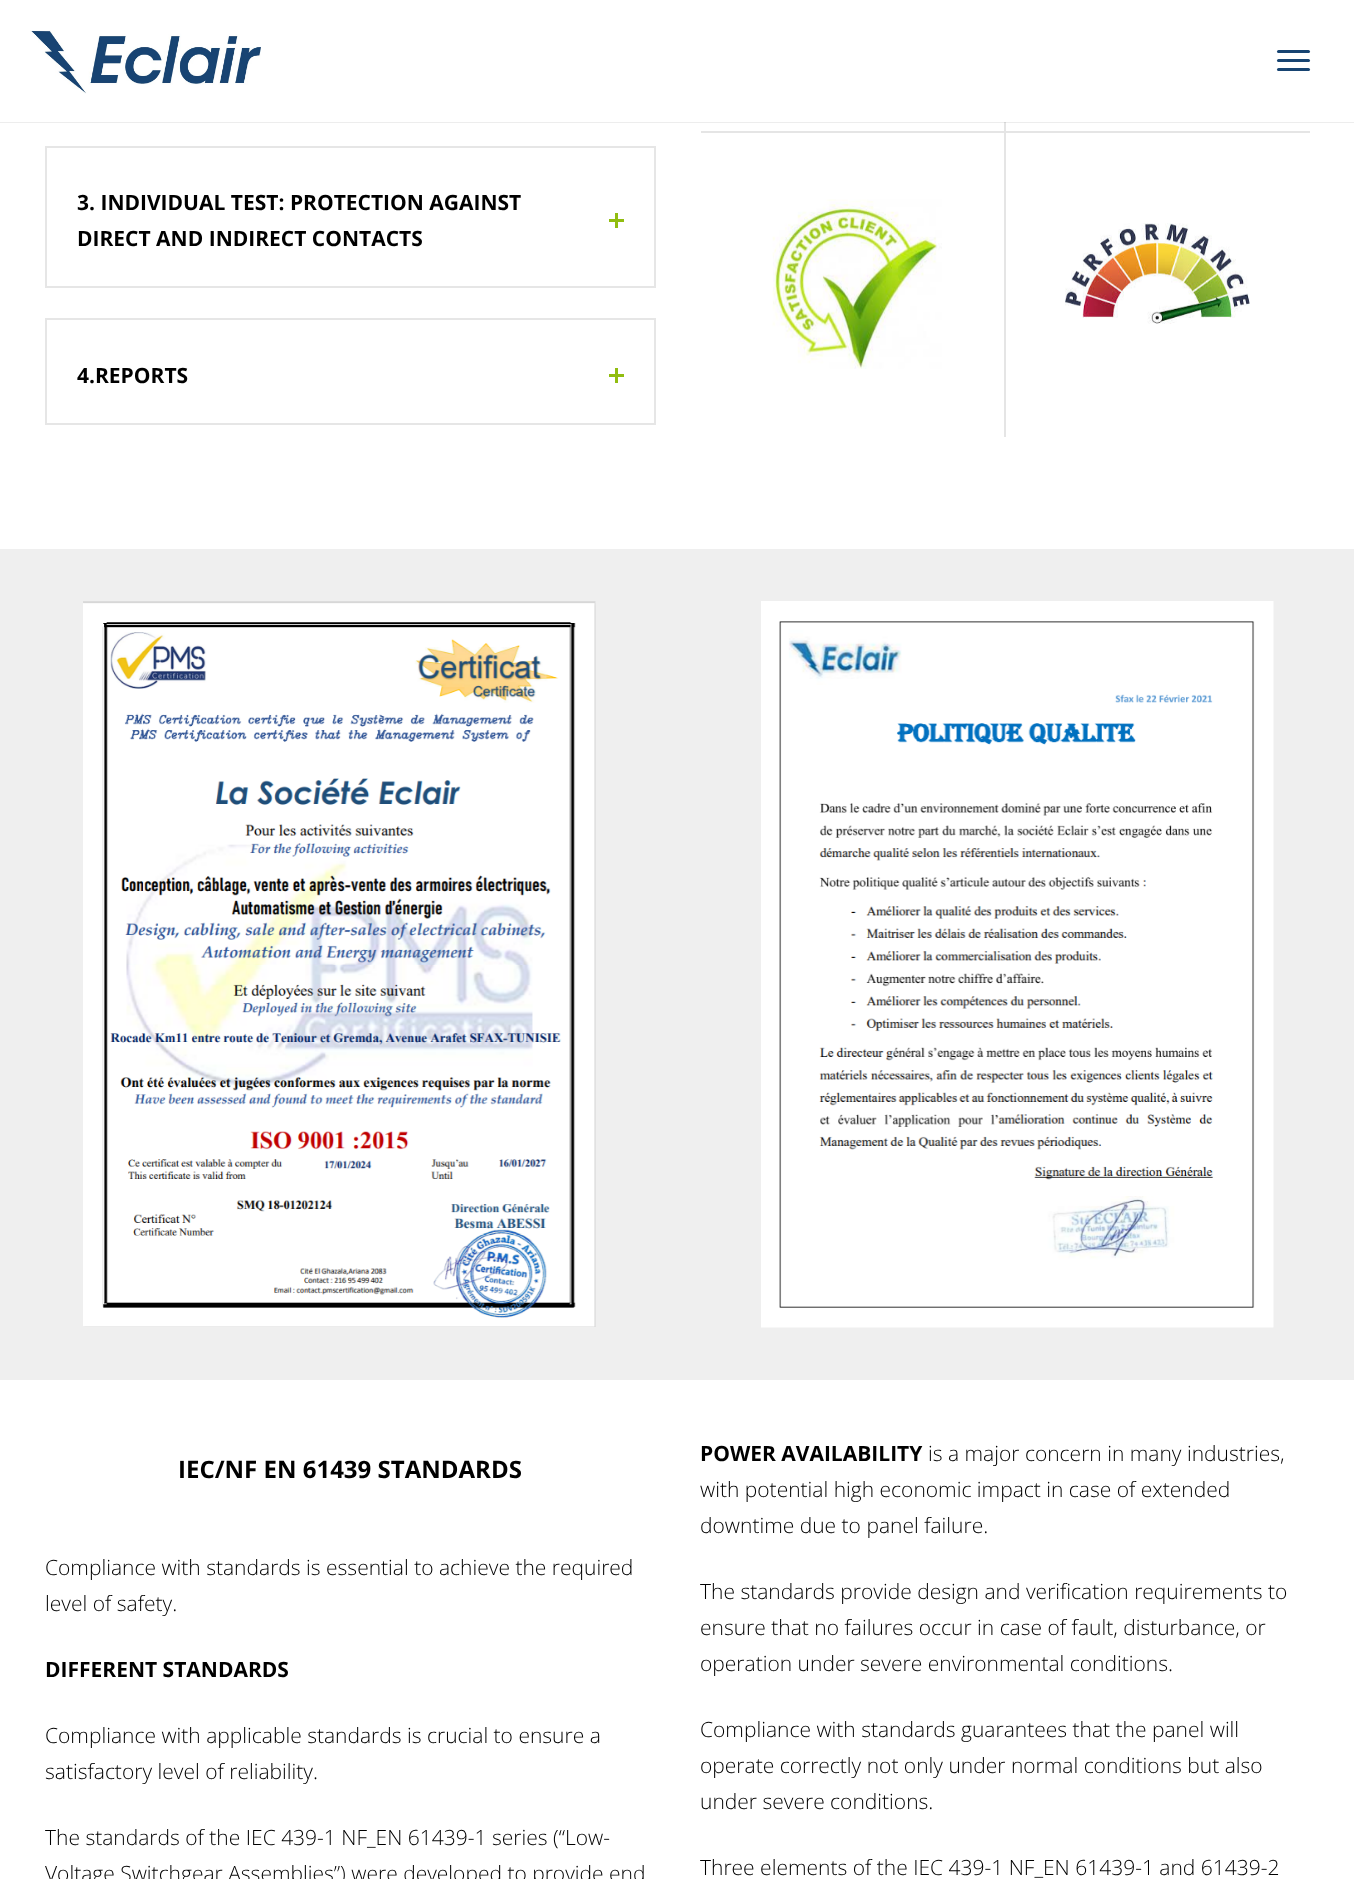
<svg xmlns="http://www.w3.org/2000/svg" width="1354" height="1879">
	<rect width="100%" height="100%" fill="#FFFFFF" />
	<rect x="1004" y="122" width="2" height="9" fill="#E5E5E5" />
	<path d="M0 122V123H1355V2H1354V122Z" fill="#000000" fill-opacity="0.07" />
	<image x="30" y="30" width="231" height="64" href="assets/img1.png" />
	<rect x="1277" y="50" width="33" height="3" rx="1.5" fill="#174472" />
	<rect x="1277" y="59" width="33" height="3" rx="1.5" fill="#174472" />
	<rect x="1277" y="68" width="33" height="3" rx="1.5" fill="#174472" />
	<rect x="46" y="147" width="609" height="140" fill="none" stroke="#E6E6E6" stroke-width="2" />
	<g font-family="Open Sans" font-size="21" font-weight="700" fill="#000000">
		<text x="77" y="210">3. INDIVIDUAL TEST: PROTECTION AGAINST</text>
		<text x="77" y="246">DIRECT AND INDIRECT CONTACTS</text>
	</g>
	<rect x="609" y="219" width="15" height="3" fill="#91BD10" />
	<rect x="615" y="213" width="3" height="15" fill="#91BD10" />
	<rect x="46" y="319" width="609" height="105" fill="none" stroke="#E6E6E6" stroke-width="2" />
	<text x="77" y="383" font-family="Open Sans" font-size="21" font-weight="700" fill="#000000">4.REPORTS</text>
	<rect x="609" y="374" width="15" height="3" fill="#91BD10" />
	<rect x="615" y="368" width="3" height="15" fill="#91BD10" />
	<rect x="701" y="131" width="609" height="2" fill="#E5E5E5" />
	<rect x="1004" y="132" width="2" height="305" fill="#E5E5E5" />
	<image x="772" y="199" width="170" height="170" href="assets/img2.png" />
	<image x="1065" y="223" width="185" height="101" href="assets/img3.png" />
	<rect x="0" y="549" width="1354" height="831" fill="#EFEFEF" />
	<image x="83" y="601" width="513" height="726" href="assets/img4.png" />
	<image x="761" y="601" width="513" height="727" href="assets/img5.png" />
	<text x="178" y="1478" font-family="Open Sans" font-size="24" font-weight="700" fill="#000000">IEC/NF EN 61439 STANDARDS</text>
	<g font-family="Open Sans" font-size="21" font-weight="300" fill="#000000">
		<text x="45" y="1575">Compliance with standards is essential to achieve the required</text>
		<text x="45" y="1611">level of safety.</text>
	</g>
	<text x="45" y="1677" font-family="Open Sans" font-size="21" font-weight="700" fill="#000000">DIFFERENT STANDARDS</text>
	<g font-family="Open Sans" font-size="21" font-weight="300" fill="#000000">
		<text x="45" y="1743">Compliance with applicable standards is crucial to ensure a</text>
		<text x="45" y="1779">satisfactory level of reliability.</text>
		<text x="45" y="1845">The standards of the IEC 439-1 NF_EN 61439-1 series (“Low-</text>
		<text x="45" y="1881">Voltage Switchgear Assemblies”) were developed to provide end</text>
	</g>
	<text x="700" y="1461" font-family="Open Sans" font-size="21" font-weight="700" fill="#000000">POWER AVAILABILITY</text>
	<g font-family="Open Sans" font-size="21" font-weight="300" fill="#000000">
		<text x="928" y="1461">is a major concern in many industries,</text>
		<text x="700" y="1497">with potential high economic impact in case of extended</text>
		<text x="700" y="1533">downtime due to panel failure.</text>
		<text x="700" y="1599">The standards provide design and verification requirements to</text>
		<text x="700" y="1635">ensure that no failures occur in case of fault, disturbance, or</text>
		<text x="700" y="1671">operation under severe environmental conditions.</text>
		<text x="700" y="1737">Compliance with standards guarantees that the panel will</text>
		<text x="700" y="1773">operate correctly not only under normal conditions but also</text>
		<text x="700" y="1809">under severe conditions.</text>
		<text x="700" y="1875">Three elements of the IEC 439-1 NF_EN 61439-1 and 61439-2</text>
	</g>
</svg>
